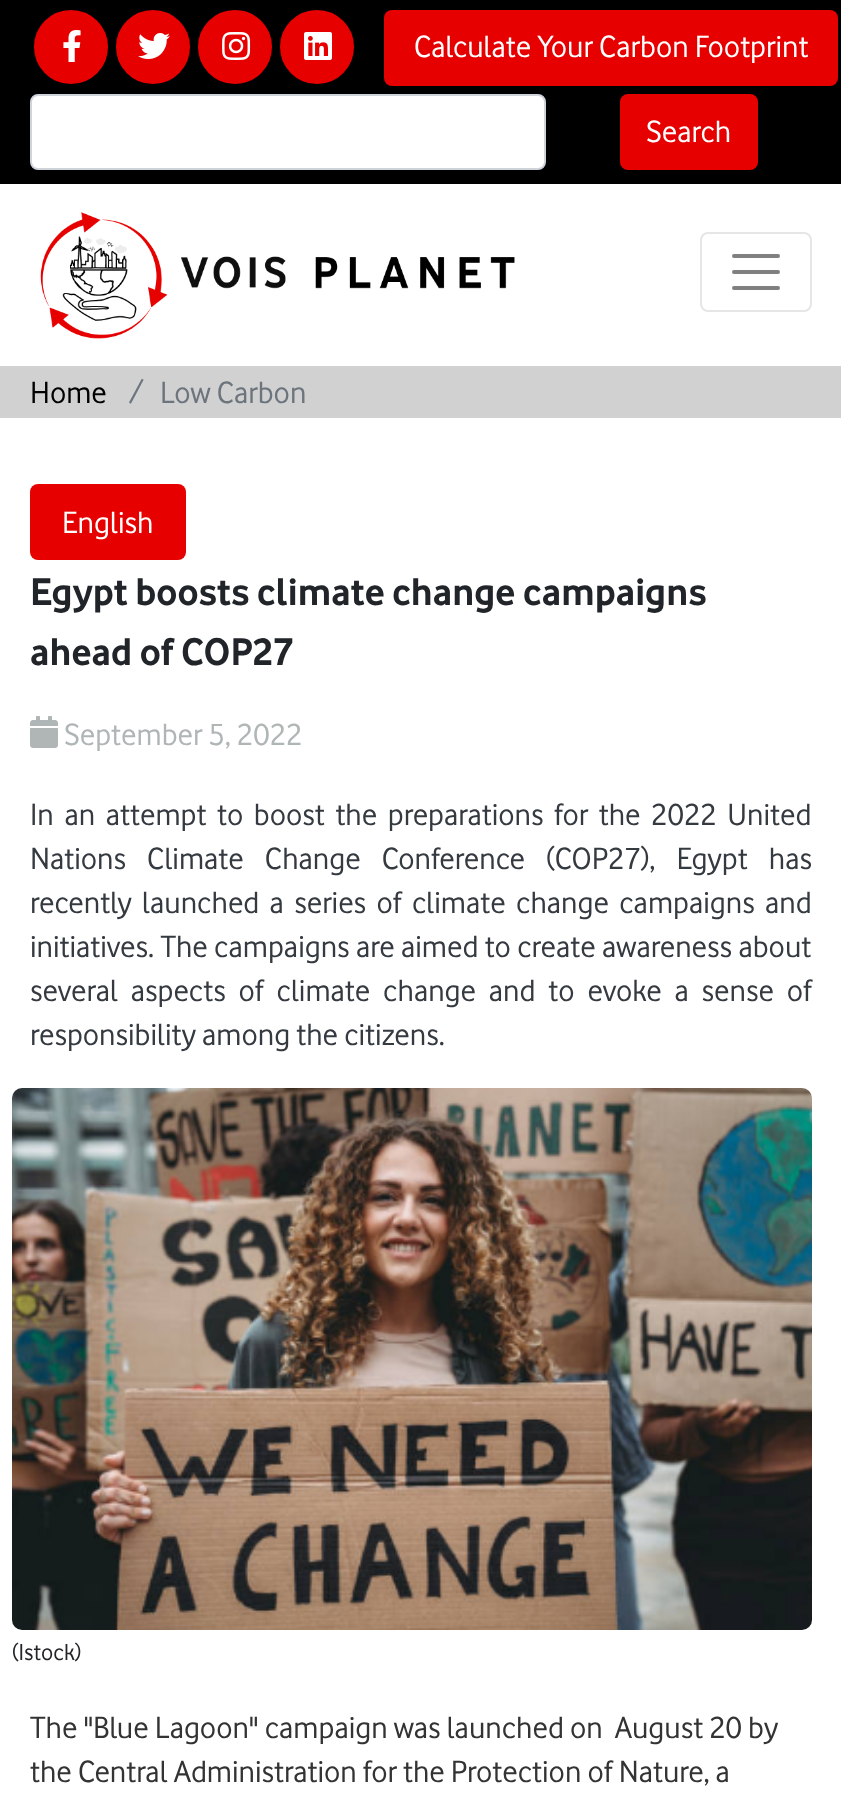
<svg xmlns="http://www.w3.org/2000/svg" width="841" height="1806">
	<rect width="100%" height="100%" fill="#FFFFFF" />
	<rect x="0" y="0" width="841" height="184" fill="#000000" />
	<circle cx="71" cy="47" r="36" fill="#E60000" stroke="#E60000" stroke-width="2" />
	<image x="63" y="30" width="18" height="32" href="assets/img1.png" />
	<circle cx="153" cy="47" r="36" fill="#E60000" stroke="#E60000" stroke-width="2" />
	<image x="138" y="33" width="32" height="26" href="assets/img2.png" />
	<circle cx="235" cy="47" r="36" fill="#E60000" stroke="#E60000" stroke-width="2" />
	<image x="222" y="32" width="29" height="28" href="assets/img3.png" />
	<circle cx="317" cy="47" r="36" fill="#E60000" stroke="#E60000" stroke-width="2" />
	<image x="304" y="32" width="28" height="28" href="assets/img4.png" />
	<rect x="384" y="10" width="454" height="76" rx="8" fill="#E60000" />
	<text x="414" y="57" font-family="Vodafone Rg" font-size="32" fill="#FFFFFF">Calculate Your Carbon Footprint</text>
	<rect x="31" y="95" width="514" height="74" rx="7" fill="#FFFFFF" stroke="#CED4DA" stroke-width="2" />
	<rect x="620" y="94" width="138" height="76" rx="8" fill="#E60000" />
	<text x="646" y="142" font-family="Vodafone Rg" font-size="32" fill="#FFFFFF">Search</text>
	<image x="40" y="212" width="475" height="127" href="assets/img5.png" />
	<rect x="701" y="233" width="110" height="78" rx="7" fill="none" stroke="#E6E6E6" stroke-width="2" />
	<path d="M734 256H778M734 272H778M734 288H778" fill="none" stroke="#808080" stroke-width="4" stroke-linecap="round" />
	<rect x="0" y="366" width="841" height="52" fill="#D1D1D1" />
	<text x="30" y="403" font-family="Vodafone Rg" font-size="32" fill="#000000">Home</text>
	<g font-family="Vodafone Rg" font-size="32" fill="#6C757D">
		<text x="129" y="403">/</text>
		<text x="160" y="403">Low Carbon</text>
	</g>
	<rect x="30" y="484" width="156" height="76" rx="8" fill="#E60000" />
	<text x="62" y="533" font-family="Vodafone Rg" font-size="32" fill="#FFFFFF">English</text>
	<g font-family="Vodafone Rg" font-size="40" font-weight="700" fill="#212529">
		<text x="30" y="605">Egypt boosts climate change campaigns</text>
		<text x="30" y="665">ahead of COP27</text>
	</g>
	<image x="30" y="716" width="28" height="32" href="assets/img6.png" />
	<text x="64" y="745" font-family="Vodafone Rg" font-size="32" fill="#B0B5B5">September 5, 2022</text>
	<g font-family="Vodafone Rg" font-size="32" fill="#343A40">
		<text x="30" y="825" word-spacing="4.5">In an attempt to boost the preparations for the 2022 United</text>
		<text x="30" y="869" word-spacing="15">Nations Climate Change Conference (COP27), Egypt has</text>
		<text x="30" y="913" word-spacing="4.25">recently launched a series of climate change campaigns and</text>
		<text x="30" y="957" word-spacing="0.25">initiatives. The campaigns are aimed to create awareness about</text>
		<text x="30" y="1001" word-spacing="6.75">several aspects of climate change and to evoke a sense of</text>
		<text x="30" y="1045">responsibility among the citizens.</text>
	</g>
	<image x="12" y="1088" width="800" height="542" href="assets/img7.png" />
	<text x="12" y="1660" font-family="Vodafone Rg" font-size="24" fill="#212529">(Istock)</text>
	<g font-family="Vodafone Rg" font-size="32" fill="#333333">
		<text x="30" y="1738" xml:space="preserve">The "Blue Lagoon" campaign was launched on  August 20 by</text>
		<text x="30" y="1782">the Central Administration for the Protection of Nature, a</text>
	</g>
</svg>
